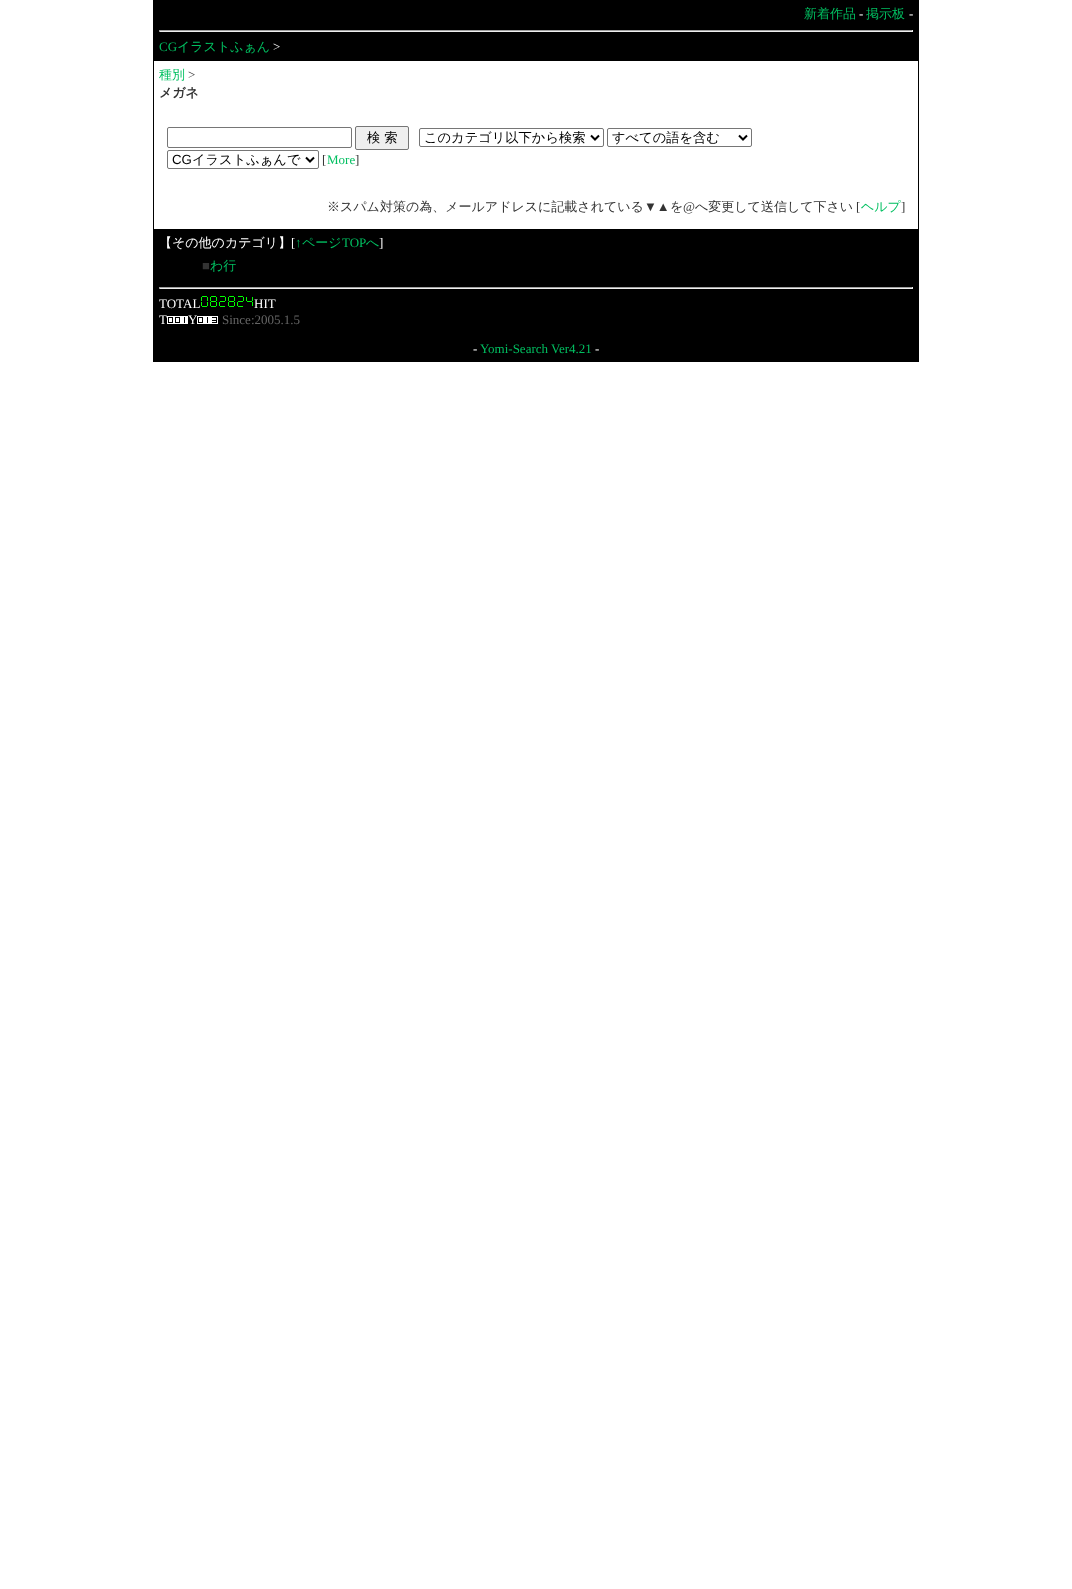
<svg xmlns="http://www.w3.org/2000/svg" width="1072" height="1589">
	<rect width="100%" height="100%" fill="#FFFFFF" />
	<rect x="918" y="0" width="1" height="362" fill="#000000" />
	<rect x="153" y="0" width="765" height="61" fill="#000000" />
	<text x="804" y="18" font-family="WenQuanYi Zen Hei" font-size="13" font-weight="500" fill="#00BF60">新着作品</text>
	<text x="859" y="18" font-family="Liberation Serif" font-size="13" fill="#FFFFFF">-</text>
	<text x="866" y="18" font-family="WenQuanYi Zen Hei" font-size="13" font-weight="500" fill="#00BF60">掲示板</text>
	<text x="909" y="18" font-family="Liberation Serif" font-size="13" fill="#FFFFFF">-</text>
	<rect x="159" y="30" width="754" height="1" fill="#9F9F9F" />
	<rect x="912" y="30" width="1" height="2" fill="#EEEEEE" />
	<rect x="159" y="31" width="754" height="1" fill="#EEEEEE" />
	<rect x="159" y="30" width="1" height="2" fill="#9F9F9F" />
	<text x="159" y="51" font-family="Liberation Serif" font-size="13" fill="#00BF60">CG</text>
	<text x="177" y="51" font-family="WenQuanYi Zen Hei" font-size="13" font-weight="500" fill="#00BF60">イラストふぁん</text>
	<text x="273" y="51" font-family="Liberation Serif" font-size="13" fill="#FFFFFF">&gt;</text>
	<rect x="153" y="61" width="1" height="301" fill="#000000" />
	<text x="159" y="79" font-family="WenQuanYi Zen Hei" font-size="13" font-weight="500" fill="#00BF60">種別</text>
	<text x="188" y="79" font-family="Liberation Serif" font-size="13" fill="#333333">&gt;</text>
	<text x="159" y="97" font-family="WenQuanYi Zen Hei" font-size="13" font-weight="700" fill="#333333">メガネ</text>
	<rect x="167.5" y="127.5" width="184" height="20" rx="1.5" fill="none" stroke="#767676" />
	<rect x="355.5" y="126.5" width="53" height="23" rx="1.5" fill="#EFEFEF" stroke="#767676" />
	<text x="367" y="142" font-family="WenQuanYi Zen Hei" font-size="13.25" font-weight="500" fill="#000000">検 索</text>
	<rect x="419.5" y="128.5" width="184" height="18" rx="1.5" fill="none" stroke="#767676" />
	<path d="M591 135.5L595 139.5L599 135.5" fill="none" stroke="#000000" stroke-width="2" />
	<text x="424" y="142" font-family="WenQuanYi Zen Hei" font-size="13.25" font-weight="500" fill="#000000">このカテゴリ以下から検索</text>
	<rect x="607.5" y="128.5" width="144" height="18" rx="1.5" fill="none" stroke="#767676" />
	<path d="M739 135.5L743 139.5L747 135.5" fill="none" stroke="#000000" stroke-width="2" />
	<text x="612" y="142" font-family="WenQuanYi Zen Hei" font-size="13.25" font-weight="500" fill="#000000">すべての語を含む</text>
	<rect x="167.5" y="150.5" width="151" height="18" rx="1.5" fill="none" stroke="#767676" />
	<path d="M306 157.5L310 161.5L314 157.5" fill="none" stroke="#000000" stroke-width="2" />
	<text x="172" y="164" font-family="Liberation Sans" font-size="13.25" fill="#000000">CG</text>
	<text x="192" y="164" font-family="WenQuanYi Zen Hei" font-size="13.25" font-weight="500" fill="#000000">イラストふぁんで</text>
	<text x="322" y="164" font-family="Liberation Serif" font-size="13" fill="#333333">[</text>
	<text x="327" y="164" font-family="Liberation Serif" font-size="13" fill="#00BF60">More</text>
	<text x="355" y="164" font-family="Liberation Serif" font-size="13" fill="#333333">]</text>
	<text x="327" y="211" font-family="WenQuanYi Zen Hei" font-size="13" font-weight="500" fill="#333333">※スパム対策の為、メールアドレスに記載されている</text>
	<text x="644" y="211" font-family="Liberation Serif" font-size="13" fill="#333333">▼▲</text>
	<text x="670" y="211" font-family="WenQuanYi Zen Hei" font-size="13" font-weight="500" fill="#333333">を</text>
	<text x="683" y="211" font-family="Liberation Serif" font-size="13" fill="#333333">@</text>
	<text x="695" y="211" font-family="WenQuanYi Zen Hei" font-size="13" font-weight="500" fill="#333333">へ変更して送信して下さい</text>
	<text x="856" y="211" font-family="Liberation Serif" font-size="13" fill="#333333">[</text>
	<text x="861" y="211" font-family="WenQuanYi Zen Hei" font-size="13" font-weight="500" fill="#00BF60">ヘルプ</text>
	<text x="901" y="211" font-family="Liberation Serif" font-size="13" fill="#333333">]</text>
	<rect x="154" y="229" width="764" height="133" fill="#000000" />
	<text x="159" y="247" font-family="WenQuanYi Zen Hei" font-size="13" font-weight="500" fill="#FFFFFF">【その他のカテゴリ】</text>
	<text x="291" y="247" font-family="Liberation Serif" font-size="13" fill="#FFFFFF">[</text>
	<text x="295" y="247" font-family="Liberation Serif" font-size="13" fill="#00BF60">↑</text>
	<text x="302" y="247" font-family="WenQuanYi Zen Hei" font-size="13" font-weight="500" fill="#00BF60">ページ</text>
	<text x="342" y="247" font-family="Liberation Serif" font-size="13" fill="#00BF60">TOP</text>
	<text x="366" y="247" font-family="WenQuanYi Zen Hei" font-size="13" font-weight="500" fill="#00BF60">へ</text>
	<text x="379" y="247" font-family="Liberation Serif" font-size="13" fill="#FFFFFF">]</text>
	<text x="202" y="270" font-family="Liberation Serif" font-size="13" fill="#333333">■</text>
	<text x="210" y="270" font-family="WenQuanYi Zen Hei" font-size="13" font-weight="500" fill="#00BF60">わ行</text>
	<rect x="159" y="287" width="754" height="1" fill="#9F9F9F" />
	<rect x="912" y="287" width="1" height="2" fill="#EEEEEE" />
	<rect x="159" y="288" width="754" height="1" fill="#EEEEEE" />
	<rect x="159" y="287" width="1" height="2" fill="#9F9F9F" />
	<text x="159" y="308" font-family="Liberation Serif" font-size="13" fill="#FFFFFF">TOTAL</text>
	<image x="201" y="296" width="52" height="11" href="assets/img1.png" />
	<g font-family="Liberation Serif" font-size="13" fill="#FFFFFF">
		<text x="254" y="308">HIT</text>
		<text x="159" y="324">T</text>
	</g>
	<image x="167" y="316" width="21" height="8" href="assets/img2.png" />
	<text x="188" y="324" font-family="Liberation Serif" font-size="13" fill="#FFFFFF">Y</text>
	<image x="197" y="316" width="21" height="8" href="assets/img3.png" />
	<text x="222" y="324" font-family="Liberation Serif" font-size="13" fill="#666666">Since:2005.1.5</text>
	<text x="473" y="353" font-family="Liberation Serif" font-size="13" fill="#FFFFFF">-</text>
	<text x="480" y="353" font-family="Liberation Serif" font-size="13" fill="#00BF60">Yomi-Search Ver4.21</text>
	<text x="595" y="353" font-family="Liberation Serif" font-size="13" fill="#FFFFFF">-</text>
</svg>
